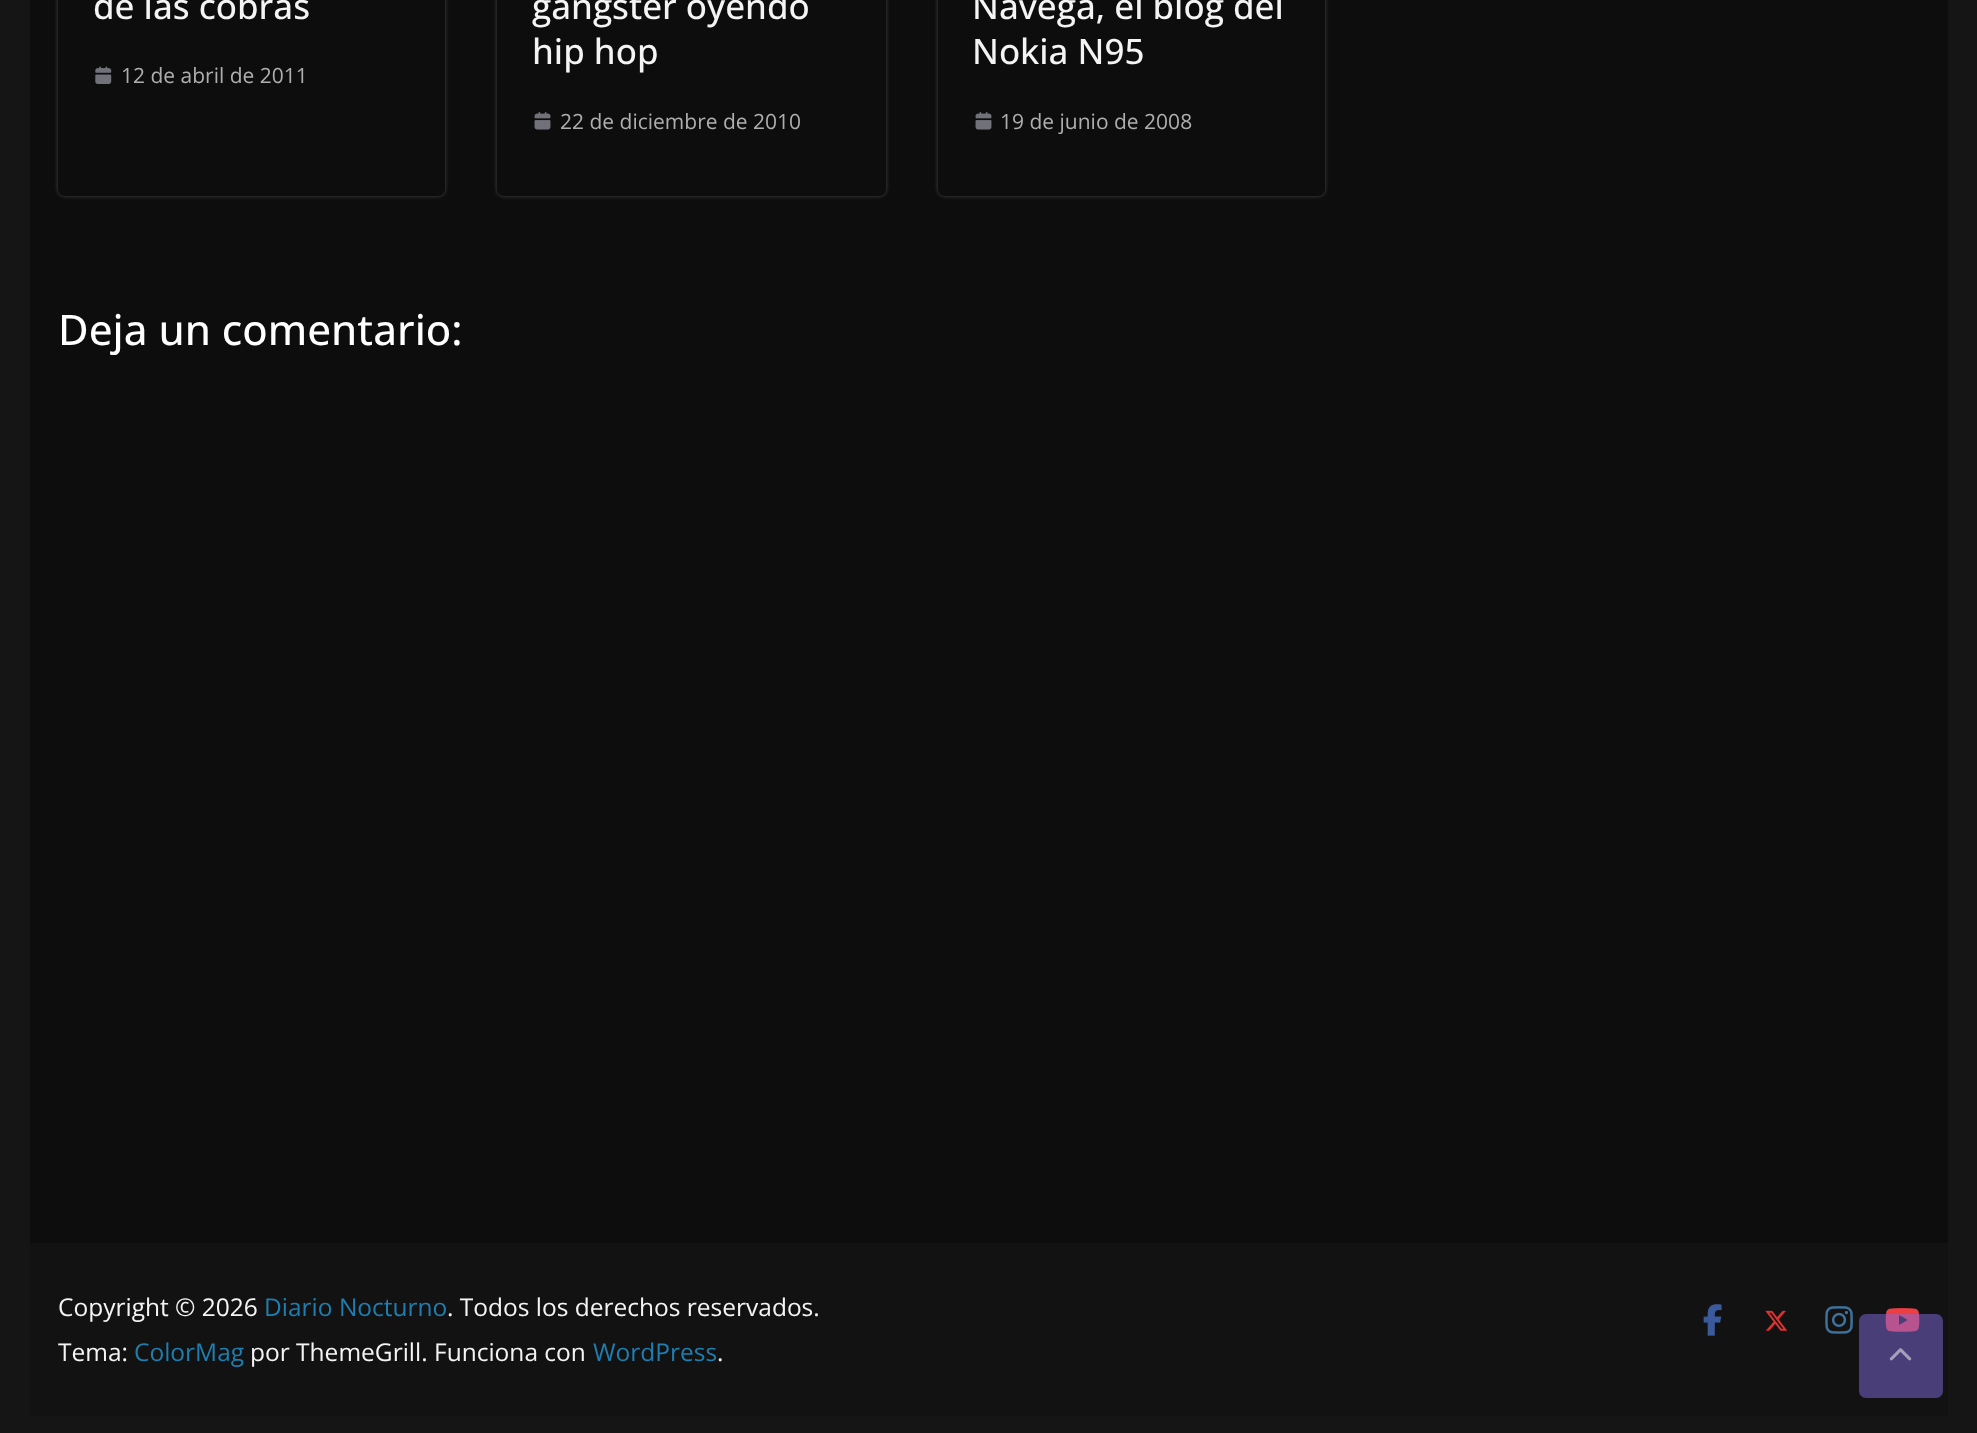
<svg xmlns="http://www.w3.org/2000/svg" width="1977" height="1433">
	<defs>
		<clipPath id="clip1"><path d="M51 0H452V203H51ZM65-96H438C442-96 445-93 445-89V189C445 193 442 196 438 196H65C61 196 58 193 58 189V-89C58-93 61-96 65-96Z" clip-rule="evenodd" /></clipPath>
		<clipPath id="clip2"><path d="M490 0H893V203H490ZM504-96H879C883-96 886-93 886-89V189C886 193 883 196 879 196H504C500 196 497 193 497 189V-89C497-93 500-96 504-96Z" clip-rule="evenodd" /></clipPath>
		<clipPath id="clip3"><path d="M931 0H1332V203H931ZM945-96H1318C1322-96 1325-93 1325-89V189C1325 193 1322 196 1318 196H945C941 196 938 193 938 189V-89C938-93 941-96 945-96Z" clip-rule="evenodd" /></clipPath>
	</defs>
	<rect width="100%" height="100%" fill="#151515" />
	<rect x="30" y="0" width="1918" height="1243" fill="#0D0D0D" />
	<g clip-path="url(#clip1)">
		<rect x="58" y="-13" width="387" height="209" rx="7" fill="#FFFFFF" fill-opacity="0.24" filter="blur(2px)" />
	</g>
	<text x="93" y="19" font-family="Open Sans" font-size="35" font-weight="500" fill="#F4F4F5">de las cobras</text>
	<image x="95" y="66" width="17" height="18" href="assets/img1.png" />
	<text x="121" y="83" font-family="Open Sans" font-size="21" fill="#AEAEAE">12 de abril de 2011</text>
	<g clip-path="url(#clip2)">
		<rect x="497" y="-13" width="389" height="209" rx="7" fill="#FFFFFF" fill-opacity="0.24" filter="blur(2px)" />
	</g>
	<g font-family="Open Sans" font-size="35" font-weight="500" fill="#F4F4F5">
		<text x="532" y="19">gangster oyendo</text>
		<text x="532" y="64">hip hop</text>
	</g>
	<image x="534" y="112" width="17" height="18" href="assets/img2.png" />
	<text x="560" y="129" font-family="Open Sans" font-size="21" fill="#AEAEAE">22 de diciembre de 2010</text>
	<g clip-path="url(#clip3)">
		<rect x="938" y="-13" width="387" height="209" rx="7" fill="#FFFFFF" fill-opacity="0.24" filter="blur(2px)" />
	</g>
	<g font-family="Open Sans" font-size="35" font-weight="500" fill="#F4F4F5">
		<text x="972" y="19">Navega, el blog del</text>
		<text x="972" y="64">Nokia N95</text>
	</g>
	<image x="975" y="112" width="17" height="18" href="assets/img2.png" />
	<text x="1000" y="129" font-family="Open Sans" font-size="21" fill="#AEAEAE">19 de junio de 2008</text>
	<text x="58" y="345" font-family="Open Sans" font-size="42" font-weight="500" fill="#FFFFFF">Deja un comentario:</text>
	<rect x="30" y="1243" width="1918" height="173" fill="#121212" />
	<text x="58" y="1316" font-family="Open Sans" font-size="24.5" fill="#F4F4F5">Copyright © 2026</text>
	<text x="264" y="1316" font-family="Open Sans" font-size="24.5" fill="#207DAF">Diario Nocturno</text>
	<g font-family="Open Sans" font-size="24.5" fill="#F4F4F5">
		<text x="447" y="1316">. Todos los derechos reservados.</text>
		<text x="58" y="1361">Tema:</text>
	</g>
	<text x="134" y="1361" font-family="Open Sans" font-size="24.5" fill="#207DAF">ColorMag</text>
	<text x="250" y="1361" font-family="Open Sans" font-size="24.5" fill="#F4F4F5">por ThemeGrill. Funciona con</text>
	<text x="593" y="1361" font-family="Open Sans" font-size="24.5" fill="#207DAF">WordPress</text>
	<text x="717" y="1361" font-family="Open Sans" font-size="24.5" fill="#F4F4F5">.</text>
	<image x="1703" y="1304" width="19" height="32" href="assets/img3.png" />
	<image x="1765" y="1310" width="23" height="21" href="assets/img4.png" />
	<image x="1825" y="1306" width="28" height="28" href="assets/img5.png" />
	<image x="1885" y="1308" width="35" height="24" href="assets/img6.png" />
	<rect x="1859" y="1314" width="84" height="84" rx="7" fill="#8269DF" fill-opacity="0.5" />
	<image x="1889" y="1348" width="23" height="13" href="assets/img7.png" />
</svg>
